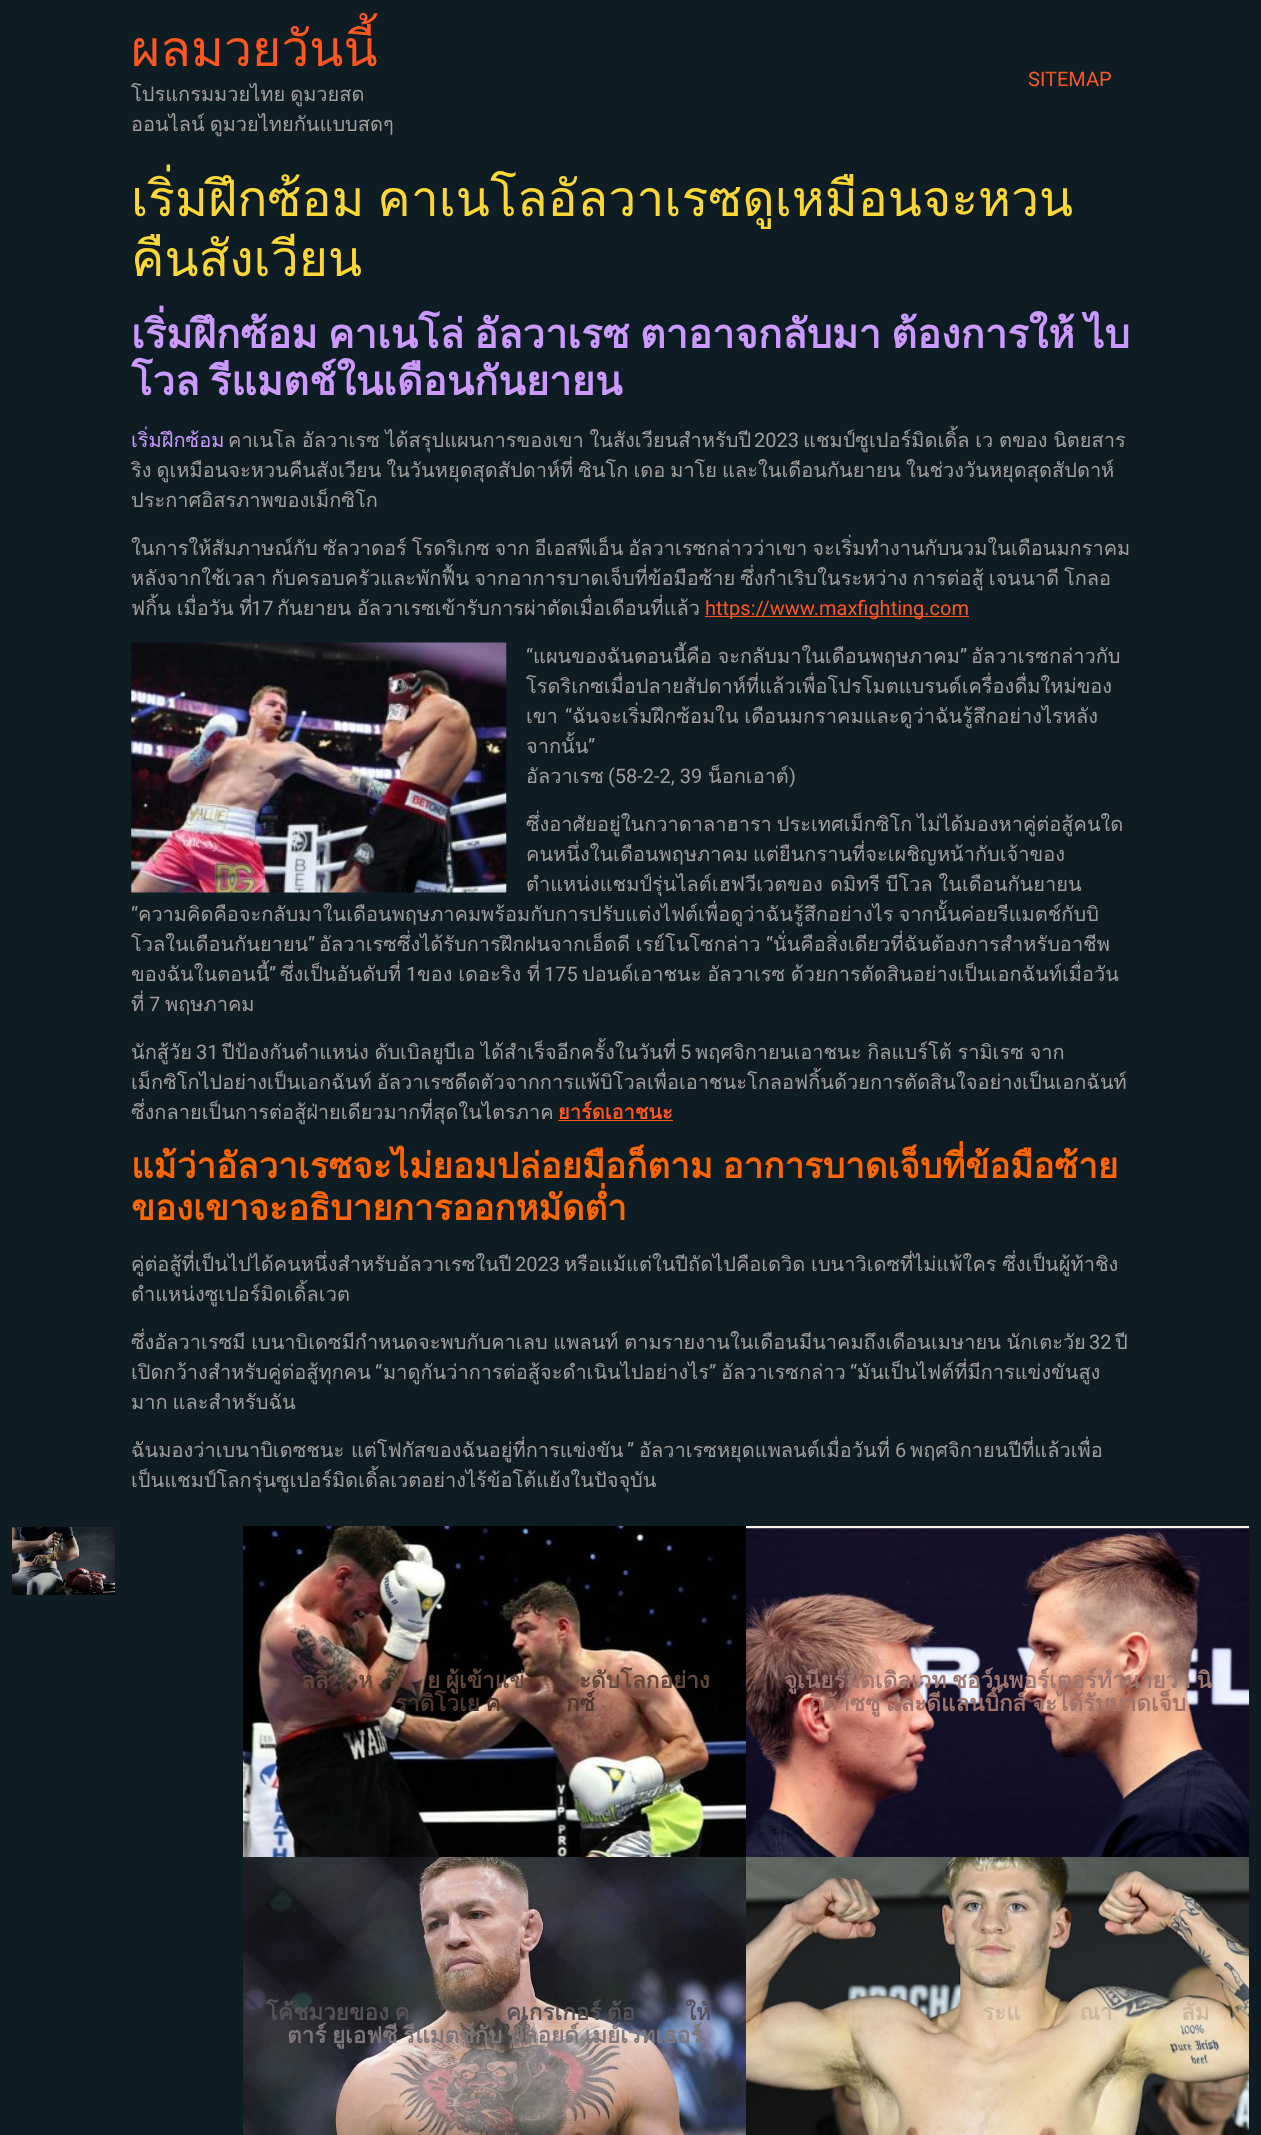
<svg xmlns="http://www.w3.org/2000/svg" width="1261" height="2135">
	<rect width="100%" height="100%" fill="#0D1D23" />
	<text x="131" y="66" font-family="Loma" font-size="50" fill="#FF5722">ผลมวยวันนี้</text>
	<g font-family="Loma" font-size="20" fill="#A29D9D">
		<text x="131" y="101" word-spacing="-1.75">โปรแกรมมวยไทย ดูมวยสด</text>
		<text x="131" y="131" word-spacing="-1.75">ออนไลน์ ดูมวยไทยกันแบบสดๆ</text>
	</g>
	<text x="1028" y="86" font-family="Roboto" font-size="20" fill="#FF5722">SITEMAP</text>
	<g font-family="Loma" font-size="50" fill="#FDD835">
		<text x="131" y="216" word-spacing="-4">เริ่มฝึกซ้อม คาเนโลอัลวาเรซดูเหมือนจะหวน</text>
		<text x="131" y="276">คืนสังเวียน</text>
	</g>
	<g font-family="Loma" font-size="40" font-weight="700" fill="#CC99FF">
		<text x="131" y="348" word-spacing="-3.5">เริ่มฝึกซ้อม คาเนโล่ อัลวาเรซ ตาอาจกลับมา ต้องการให้ ไบ</text>
		<text x="131" y="395" word-spacing="-3.5">โวล รีแมตช์ในเดือนกันยายน</text>
	</g>
	<text x="131" y="447" font-family="Loma" font-size="20" fill="#CC99FF">เริ่มฝึกซ้อม</text>
	<text x="228" y="447" word-spacing="-1" font-family="Loma" font-size="20" fill="#A29D9D">คาเนโล อัลวาเรซ ได้สรุปแผนการของเขา ในสังเวียนสำหรับปี</text>
	<text x="754" y="447" font-family="Roboto" font-size="20" fill="#A29D9D">2023</text>
	<g font-family="Loma" font-size="20" fill="#A29D9D">
		<text x="803" y="447" word-spacing="-1">แชมป์ซูเปอร์มิดเดิ้ล เว ตของ นิตยสาร</text>
		<text x="131" y="477" word-spacing="-1.75">ริง ดูเหมือนจะหวนคืนสังเวียน ในวันหยุดสุดสัปดาห์ที่ ซินโก เดอ มาโย และในเดือนกันยายน ในช่วงวันหยุดสุดสัปดาห์</text>
		<text x="131" y="507">ประกาศอิสรภาพของเม็กซิโก</text>
		<text x="131" y="555" word-spacing="-1.75">ในการให้สัมภาษณ์กับ ซัลวาดอร์ โรดริเกซ จาก อีเอสพีเอ็น อัลวาเรซกล่าวว่าเขา จะเริ่มทำงานกับนวมในเดือนมกราคม</text>
		<text x="131" y="585" word-spacing="-1.75">หลังจากใช้เวลา กับครอบครัวและพักฟื้น จากอาการบาดเจ็บที่ข้อมือซ้าย ซึ่งกำเริบในระหว่าง การต่อสู้ เจนนาดี โกลอ</text>
		<text x="131" y="615" word-spacing="-1">ฟกิ้น เมื่อวัน ที่</text>
	</g>
	<text x="251" y="615" font-family="Roboto" font-size="20" fill="#A29D9D">17</text>
	<text x="277" y="615" word-spacing="-1" font-family="Loma" font-size="20" fill="#A29D9D">กันยายน อัลวาเรซเข้ารับการผ่าตัดเมื่อเดือนที่แล้ว</text>
	<rect x="705" y="616" width="264" height="1" fill="#FF5722" />
	<text x="705" y="615" font-family="Roboto" font-size="20" fill="#FF5722">https://www.maxfighting.com</text>
	<image x="131" y="642" width="376" height="251" href="assets/img1.png" />
	<text x="526" y="663" font-family="Roboto" font-size="20" fill="#A29D9D">“</text>
	<text x="533" y="663" word-spacing="-1" font-family="Loma" font-size="20" fill="#A29D9D">แผนของฉันตอนนี้คือ จะกลับมาในเดือนพฤษภาคม</text>
	<text x="960" y="663" font-family="Roboto" font-size="20" fill="#A29D9D">”</text>
	<g font-family="Loma" font-size="20" fill="#A29D9D">
		<text x="971" y="663">อัลวาเรซกล่าวกับ</text>
		<text x="526" y="693">โรดริเกซเมื่อปลายสัปดาห์ที่แล้วเพื่อโปรโมตแบรนด์เครื่องดื่มใหม่ของ</text>
	</g>
	<text x="565" y="723" font-family="Roboto" font-size="20" fill="#A29D9D">“</text>
	<g font-family="Loma" font-size="20" fill="#A29D9D">
		<text x="572" y="723" word-spacing="-1">ฉันจะเริ่มฝึกซ้อมใน เดือนมกราคมและดูว่าฉันรู้สึกอย่างไรหลัง</text>
		<text x="526" y="723">เขา</text>
		<text x="526" y="753">จากนั้น</text>
	</g>
	<text x="588" y="753" font-family="Roboto" font-size="20" fill="#A29D9D">”</text>
	<text x="526" y="783" font-family="Loma" font-size="20" fill="#A29D9D">อัลวาเรซ</text>
	<text x="608" y="783" font-family="Roboto" font-size="20" fill="#A29D9D">(58-2-2, 39</text>
	<text x="708" y="783" font-family="Loma" font-size="20" fill="#A29D9D">น็อกเอาต์</text>
	<text x="789" y="783" font-family="Roboto" font-size="20" fill="#A29D9D">)</text>
	<g font-family="Loma" font-size="20" fill="#A29D9D">
		<text x="526" y="831" word-spacing="-1.75">ซึ่งอาศัยอยู่ในกวาดาลาฮารา ประเทศเม็กซิโก ไม่ได้มองหาคู่ต่อสู้คนใด</text>
		<text x="526" y="861" word-spacing="-1.75">คนหนึ่งในเดือนพฤษภาคม แต่ยืนกรานที่จะเผชิญหน้ากับเจ้าของ</text>
		<text x="526" y="891">ตำแหน่งแชมป์รุ่นไลต์เฮฟวีเวตของ</text>
		<text x="830" y="891" word-spacing="-1">ดมิทรี บีโวล ในเดือนกันยายน</text>
	</g>
	<text x="131" y="921" font-family="Roboto" font-size="20" fill="#A29D9D">“</text>
	<g font-family="Loma" font-size="20" fill="#A29D9D">
		<text x="138" y="921" word-spacing="-1.75">ความคิดคือจะกลับมาในเดือนพฤษภาคมพร้อมกับการปรับแต่งไฟต์เพื่อดูว่าฉันรู้สึกอย่างไร จากนั้นค่อยรีแมตช์กับบิ</text>
		<text x="131" y="951">โวลในเดือนกันยายน</text>
	</g>
	<text x="308" y="951" font-family="Roboto" font-size="20" fill="#A29D9D">”</text>
	<text x="319" y="951" word-spacing="-1" font-family="Loma" font-size="20" fill="#A29D9D">อัลวาเรซซึ่งได้รับการฝึกฝนจากเอ็ดดี เรย์โนโซกล่าว</text>
	<text x="766" y="951" font-family="Roboto" font-size="20" fill="#A29D9D">“</text>
	<g font-family="Loma" font-size="20" fill="#A29D9D">
		<text x="773" y="951">นั่นคือสิ่งเดียวที่ฉันต้องการสำหรับอาชีพ</text>
		<text x="131" y="981">ของฉันในตอนนี้</text>
	</g>
	<text x="269" y="981" font-family="Roboto" font-size="20" fill="#A29D9D">”</text>
	<g font-family="Loma" font-size="20" fill="#A29D9D">
		<text x="280" y="981">ซึ่งเป็นอันดับที่</text>
		<text x="417" y="981" word-spacing="-1">ของ เดอะริง ที่</text>
		<text x="582" y="981" word-spacing="-1">ปอนด์เอาชนะ อัลวาเรซ ด้วยการตัดสินอย่างเป็นเอกฉันท์เมื่อวัน</text>
	</g>
	<g font-family="Roboto" font-size="20" fill="#A29D9D">
		<text x="406" y="981">1</text>
		<text x="544" y="981">175</text>
	</g>
	<text x="131" y="1011" font-family="Loma" font-size="20" fill="#A29D9D">ที่</text>
	<text x="149" y="1011" font-family="Roboto" font-size="20" fill="#A29D9D">7</text>
	<g font-family="Loma" font-size="20" fill="#A29D9D">
		<text x="165" y="1011">พฤษภาคม</text>
		<text x="131" y="1059">นักสู้วัย</text>
	</g>
	<text x="196" y="1059" font-family="Roboto" font-size="20" fill="#A29D9D">31</text>
	<text x="222" y="1059" word-spacing="-1" font-family="Loma" font-size="20" fill="#A29D9D">ปีป้องกันตำแหน่ง ดับเบิลยูบีเอ ได้สำเร็จอีกครั้งในวันที่</text>
	<text x="680" y="1059" font-family="Roboto" font-size="20" fill="#A29D9D">5</text>
	<g font-family="Loma" font-size="20" fill="#A29D9D">
		<text x="695" y="1059" word-spacing="-1">พฤศจิกายนเอาชนะ กิลแบร์โต้ รามิเรซ จาก</text>
		<text x="131" y="1089" word-spacing="-1.75">เม็กซิโกไปอย่างเป็นเอกฉันท์ อัลวาเรซดีดตัวจากการแพ้บิโวลเพื่อเอาชนะโกลอฟกิ้นด้วยการตัดสินใจอย่างเป็นเอกฉันท์</text>
		<text x="131" y="1119">ซึ่งกลายเป็นการต่อสู้ฝ่ายเดียวมากที่สุดในไตรภาค</text>
	</g>
	<text x="558" y="1119" font-family="Loma" font-size="20" font-weight="700" fill="#FF5722">ยาร์ดเอาชนะ</text>
	<rect x="558" y="1120" width="115" height="1" fill="#FF5722" />
	<g font-family="Loma" font-size="35" font-weight="700" fill="#FF6600">
		<text x="131" y="1178" word-spacing="-2">แม้ว่าอัลวาเรซจะไม่ยอมปล่อยมือก็ตาม อาการบาดเจ็บที่ข้อมือซ้าย</text>
		<text x="131" y="1220">ของเขาจะอธิบายการออกหมัดต่ำ</text>
	</g>
	<text x="131" y="1271" font-family="Loma" font-size="20" fill="#A29D9D">คู่ต่อสู้ที่เป็นไปได้คนหนึ่งสำหรับอัลวาเรซในปี</text>
	<text x="515" y="1271" font-family="Roboto" font-size="20" fill="#A29D9D">2023</text>
	<g font-family="Loma" font-size="20" fill="#A29D9D">
		<text x="564" y="1271" word-spacing="-1">หรือแม้แต่ในปีถัดไปคือเดวิด เบนาวิเดซที่ไม่แพ้ใคร ซึ่งเป็นผู้ท้าชิง</text>
		<text x="131" y="1301">ตำแหน่งซูเปอร์มิดเดิ้ลเวต</text>
		<text x="131" y="1349" word-spacing="-1">ซึ่งอัลวาเรซมี เบนาบิเดซมีกำหนดจะพบกับคาเลบ แพลนท์ ตามรายงานในเดือนมีนาคมถึงเดือนเมษายน นักเตะวัย</text>
	</g>
	<text x="1089" y="1349" font-family="Roboto" font-size="20" fill="#A29D9D">32</text>
	<g font-family="Loma" font-size="20" fill="#A29D9D">
		<text x="1115" y="1349">ปี</text>
		<text x="131" y="1379">เปิดกว้างสำหรับคู่ต่อสู้ทุกคน</text>
	</g>
	<text x="375" y="1379" font-family="Roboto" font-size="20" fill="#A29D9D">“</text>
	<text x="383" y="1379" font-family="Loma" font-size="20" fill="#A29D9D">มาดูกันว่าการต่อสู้จะดำเนินไปอย่างไร</text>
	<text x="709" y="1379" font-family="Roboto" font-size="20" fill="#A29D9D">”</text>
	<text x="721" y="1379" font-family="Loma" font-size="20" fill="#A29D9D">อัลวาเรซกล่าว</text>
	<text x="850" y="1379" font-family="Roboto" font-size="20" fill="#A29D9D">“</text>
	<g font-family="Loma" font-size="20" fill="#A29D9D">
		<text x="857" y="1379">มันเป็นไฟต์ที่มีการแข่งขันสูง</text>
		<text x="131" y="1409" word-spacing="-1.75">มาก และสำหรับฉัน</text>
		<text x="131" y="1457">ฉันมองว่าเบนาบิเดซชนะ แต่โฟกัสของฉันอยู่ที่การแข่งขัน</text>
	</g>
	<text x="627" y="1457" font-family="Roboto" font-size="20" fill="#A29D9D">”</text>
	<text x="639" y="1457" font-family="Loma" font-size="20" fill="#A29D9D">อัลวาเรซหยุดแพลนต์เมื่อวันที่</text>
	<text x="895" y="1457" font-family="Roboto" font-size="20" fill="#A29D9D">6</text>
	<g font-family="Loma" font-size="20" fill="#A29D9D">
		<text x="910" y="1457">พฤศจิกายนปีที่แล้วเพื่อ</text>
		<text x="131" y="1487">เป็นแชมป์โลกรุ่นซูเปอร์มิดเดิ้ลเวตอย่างไร้ข้อโต้แย้งในปัจจุบัน</text>
	</g>
	<rect x="13" y="1526" width="102" height="69" fill="#0C1A20" />
	<image x="12" y="1527" width="103" height="68" href="assets/img2.png" />
	<image x="243" y="1526" width="503" height="331" href="assets/img3.png" />
	<g font-family="Loma" font-size="22.5" font-weight="700" fill="#64473D">
		<text x="301" y="1688" word-spacing="-2">ลลิ</text>
		<text x="358" y="1688" word-spacing="-2">ห</text>
		<text x="427" y="1688" word-spacing="-2">ย ผู้เข้าแข่</text>
		<text x="579" y="1688" word-spacing="-2">ะดับโลกอย่าง</text>
	</g>
	<g font-family="Loma" font-size="22.5" font-weight="700" fill="#4F3730">
		<text x="395" y="1711" word-spacing="-2">ราดิโวเย ค</text>
		<text x="566" y="1711" word-spacing="-2">กซ์</text>
	</g>
	<image x="746" y="1526" width="503" height="331" href="assets/img4.png" />
	<text x="784" y="1688" word-spacing="-2" font-family="Loma" font-size="22.5" font-weight="700" fill="#9F7772">จูเนียร์มิดเดิลเวท ชอว์นพอร์เตอร์ทํานายว่า นิ</text>
	<text x="809" y="1711" word-spacing="-2" font-family="Loma" font-size="22.5" font-weight="700" fill="#9F726B">กิต้าซซู และดีแลนบิ๊กส์ จะได้รับบาดเจ็บ</text>
	<image x="243" y="1857" width="503" height="278" href="assets/img5.png" />
	<g font-family="Loma" font-size="22.5" font-weight="700" fill="#565257">
		<text x="266" y="2020" word-spacing="-2">โค้ชมวยของ ค</text>
		<text x="506" y="2020" word-spacing="-2">คเกรเกอร์ ต้อ</text>
		<text x="685" y="2020" word-spacing="-2">ให้</text>
	</g>
	<text x="287" y="2043" word-spacing="-2" font-family="Loma" font-size="22.5" font-weight="700" fill="#7F767A">ตาร์ ยูเอฟซี รีแมตช์กับ ฟลอยด์ เมย์เวทเธอร์</text>
	<image x="746" y="1857" width="503" height="278" href="assets/img6.png" />
	<g font-family="Loma" font-size="22.5" font-weight="700" fill="#CCB79B">
		<text x="982" y="2020" word-spacing="-2">ระแ</text>
		<text x="1079" y="2020" word-spacing="-2">ณา</text>
		<text x="1181" y="2020" word-spacing="-2">ลัม</text>
	</g>
</svg>
